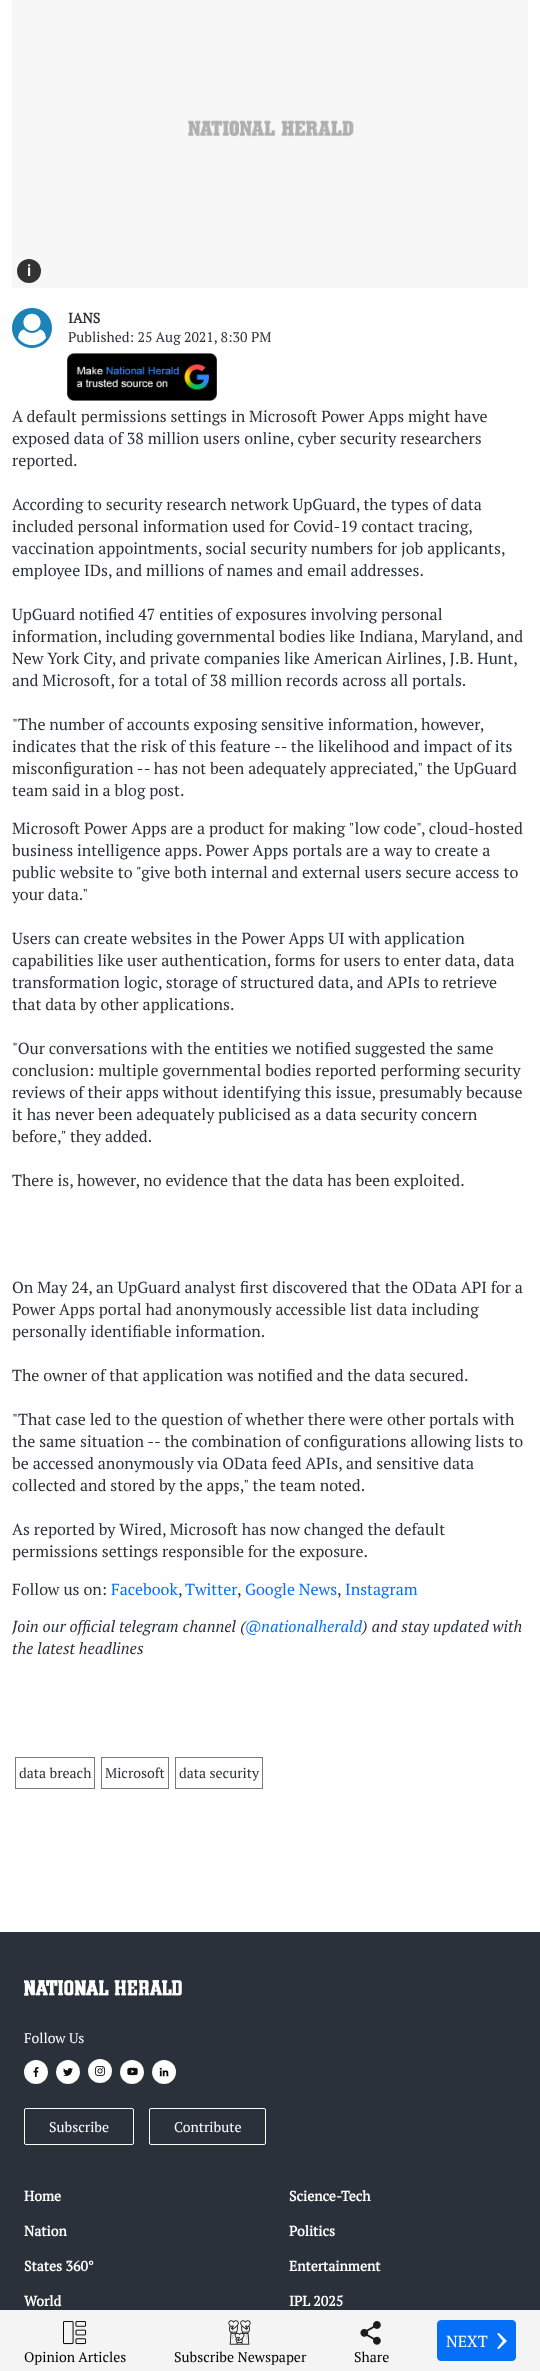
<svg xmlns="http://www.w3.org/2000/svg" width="540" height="2371">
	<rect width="100%" height="100%" fill="#FFFFFF" />
	<image x="12" y="0" width="516" height="288" href="assets/img1.png" />
	<circle cx="29" cy="271" r="12" fill="#333333" />
	<text x="27" y="276" font-family="Roboto" font-size="16" font-weight="600" fill="#FFFFFF">i</text>
	<image x="12" y="308" width="40" height="40" href="assets/img2.png" />
	<text x="68" y="323" font-family="PT Serif" font-size="14" font-weight="700" fill="#2A313B">IANS</text>
	<text x="68" y="342" font-family="PT Serif" font-size="14" fill="#2A313B">Published: 25 Aug 2021, 8:30 PM</text>
	<image x="67" y="353" width="150" height="48" href="assets/img3.png" />
	<g font-family="PT Serif" font-size="16" fill="#2A313B">
		<text x="12" y="422">A default permissions settings in Microsoft Power Apps might have</text>
		<text x="12" y="444">exposed data of 38 million users online, cyber security researchers</text>
		<text x="12" y="466">reported.</text>
		<text x="12" y="510">According to security research network UpGuard, the types of data</text>
		<text x="12" y="532">included personal information used for Covid-19 contact tracing,</text>
		<text x="12" y="554">vaccination appointments, social security numbers for job applicants,</text>
		<text x="12" y="576">employee IDs, and millions of names and email addresses.</text>
		<text x="12" y="620">UpGuard notified 47 entities of exposures involving personal</text>
		<text x="12" y="642">information, including governmental bodies like Indiana, Maryland, and</text>
		<text x="12" y="664">New York City, and private companies like American Airlines, J.B. Hunt,</text>
		<text x="12" y="686">and Microsoft, for a total of 38 million records across all portals.</text>
		<text x="12" y="730">"The number of accounts exposing sensitive information, however,</text>
		<text x="12" y="752">indicates that the risk of this feature -- the likelihood and impact of its</text>
		<text x="12" y="774">misconfiguration -- has not been adequately appreciated," the UpGuard</text>
		<text x="12" y="796">team said in a blog post.</text>
		<text x="12" y="834">Microsoft Power Apps are a product for making "low code", cloud-hosted</text>
		<text x="12" y="856">business intelligence apps. Power Apps portals are a way to create a</text>
		<text x="12" y="878">public website to "give both internal and external users secure access to</text>
		<text x="12" y="900">your data."</text>
		<text x="12" y="944">Users can create websites in the Power Apps UI with application</text>
		<text x="12" y="966">capabilities like user authentication, forms for users to enter data, data</text>
		<text x="12" y="988">transformation logic, storage of structured data, and APIs to retrieve</text>
		<text x="12" y="1010">that data by other applications.</text>
		<text x="12" y="1054">"Our conversations with the entities we notified suggested the same</text>
		<text x="12" y="1076">conclusion: multiple governmental bodies reported performing security</text>
		<text x="12" y="1098">reviews of their apps without identifying this issue, presumably because</text>
		<text x="12" y="1120">it has never been adequately publicised as a data security concern</text>
		<text x="12" y="1142">before," they added.</text>
		<text x="12" y="1186">There is, however, no evidence that the data has been exploited.</text>
		<text x="12" y="1293">On May 24, an UpGuard analyst first discovered that the OData API for a</text>
		<text x="12" y="1315">Power Apps portal had anonymously accessible list data including</text>
		<text x="12" y="1337">personally identifiable information.</text>
		<text x="12" y="1381">The owner of that application was notified and the data secured.</text>
		<text x="12" y="1425">"That case led to the question of whether there were other portals with</text>
		<text x="12" y="1447">the same situation -- the combination of configurations allowing lists to</text>
		<text x="12" y="1469">be accessed anonymously via OData feed APIs, and sensitive data</text>
		<text x="12" y="1491">collected and stored by the apps," the team noted.</text>
		<text x="12" y="1535">As reported by Wired, Microsoft has now changed the default</text>
		<text x="12" y="1557">permissions settings responsible for the exposure.</text>
		<text x="12" y="1595">Follow us on:</text>
	</g>
	<text x="111" y="1595" font-family="PT Serif" font-size="16" fill="#056FF7">Facebook</text>
	<text x="178" y="1595" font-family="PT Serif" font-size="16" fill="#2A313B">,</text>
	<text x="185" y="1595" font-family="PT Serif" font-size="16" fill="#056FF7">Twitter</text>
	<text x="237" y="1595" font-family="PT Serif" font-size="16" fill="#2A313B">,</text>
	<text x="245" y="1595" font-family="PT Serif" font-size="16" fill="#056FF7">Google News</text>
	<text x="337" y="1595" font-family="PT Serif" font-size="16" fill="#2A313B">,</text>
	<text x="345" y="1595" font-family="PT Serif" font-size="16" fill="#056FF7">Instagram</text>
	<text x="12" y="1632" font-family="PT Serif" font-size="16" font-style="italic" fill="#2A313B">Join our official telegram channel (</text>
	<text x="245" y="1632" font-family="PT Serif" font-size="16" font-style="italic" fill="#056FF7">@nationalherald</text>
	<g font-family="PT Serif" font-size="16" font-style="italic" fill="#2A313B">
		<text x="362" y="1632">) and stay updated with</text>
		<text x="12" y="1654">the latest headlines</text>
	</g>
	<rect x="15.5" y="1757.5" width="79" height="31" fill="none" stroke="#797979" />
	<text x="19" y="1778" font-family="PT Serif" font-size="14" fill="#2A313B">data breach</text>
	<rect x="101.5" y="1757.5" width="67" height="31" fill="none" stroke="#797979" />
	<text x="105" y="1778" font-family="PT Serif" font-size="14" fill="#2A313B">Microsoft</text>
	<rect x="175.5" y="1757.5" width="87" height="31" fill="none" stroke="#797979" />
	<text x="179" y="1778" font-family="PT Serif" font-size="14" fill="#2A313B">data security</text>
	<rect x="0" y="2310" width="540" height="61" fill="#F4F4F4" />
	<rect x="437.5" y="2320.5" width="78" height="40" rx="3.5" fill="#056FF7" stroke="#056FF7" />
	<text x="446" y="2347" font-family="PT Serif" font-size="16" fill="#FFFFFF">NEXT</text>
	<image x="497" y="2333" width="10" height="16" href="assets/img4.png" />
	<image x="63" y="2321" width="24" height="24" href="assets/img5.png" />
	<text x="24" y="2362" font-family="PT Serif" font-size="14" fill="#000000">Opinion Articles</text>
	<image x="228" y="2320" width="23" height="25" href="assets/img6.png" />
	<text x="174" y="2362" font-family="PT Serif" font-size="14" fill="#000000">Subscribe Newspaper</text>
	<image x="360" y="2321" width="21" height="24" href="assets/img7.png" />
	<text x="354" y="2362" font-family="PT Serif" font-size="14" fill="#000000">Share</text>
	<rect x="0" y="1932" width="540" height="378" fill="#2A313B" />
	<image x="24" y="1980" width="158" height="16" href="assets/img8.png" />
	<text x="24" y="2043" font-family="PT Serif" font-size="14" fill="#FFFFFF">Follow Us</text>
	<circle cx="36" cy="2072" r="12" fill="#FFFFFF" />
	<image x="33" y="2067" width="6" height="10" href="assets/img9.png" />
	<circle cx="68" cy="2072" r="12" fill="#FFFFFF" />
	<image x="63" y="2068" width="10" height="8" href="assets/img10.png" />
	<circle cx="100" cy="2071" r="12" fill="#FFFFFF" />
	<image x="95" y="2066" width="10" height="10" href="assets/img11.png" />
	<circle cx="132" cy="2072" r="12" fill="#FFFFFF" />
	<image x="127" y="2067" width="11" height="9" href="assets/img12.png" />
	<circle cx="164" cy="2072" r="12" fill="#FFFFFF" />
	<image x="159" y="2067" width="10" height="10" href="assets/img13.png" />
	<rect x="24.5" y="2108.5" width="109" height="36" rx="1.5" fill="none" stroke="#FFFFFF" />
	<text x="49" y="2132" font-family="PT Serif" font-size="14" fill="#FFFFFF">Subscribe</text>
	<rect x="149.5" y="2108.5" width="116" height="36" rx="1.5" fill="none" stroke="#FFFFFF" />
	<text x="174" y="2132" font-family="PT Serif" font-size="14" fill="#FFFFFF">Contribute</text>
	<g font-family="PT Serif" font-size="14" font-weight="700" fill="#FFFFFF">
		<text x="24" y="2201">Home</text>
		<text x="289" y="2201">Science-Tech</text>
		<text x="24" y="2236">Nation</text>
		<text x="289" y="2236">Politics</text>
		<text x="24" y="2271">States 360°</text>
		<text x="289" y="2271">Entertainment</text>
		<text x="24" y="2306">World</text>
		<text x="289" y="2306">IPL 2025</text>
	</g>
</svg>
